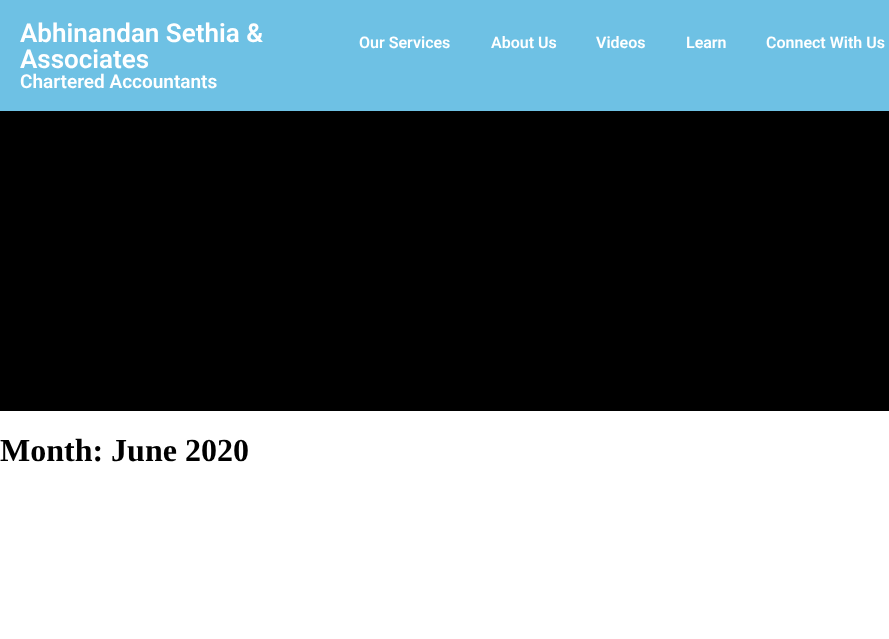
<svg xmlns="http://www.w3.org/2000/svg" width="889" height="639">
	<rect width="100%" height="100%" fill="#FFFFFF" />
	<rect x="0" y="0" width="889" height="111" fill="#6EC1E4" />
	<g font-family="Roboto" font-size="26" font-weight="600" fill="#FFFFFF">
		<text x="20" y="42">Abhinandan Sethia &amp;</text>
		<text x="20" y="68">Associates</text>
	</g>
	<text x="20" y="88" font-family="Roboto" font-size="19" font-weight="600" fill="#FFFFFF">Chartered Accountants</text>
	<g font-family="Roboto" font-size="16" font-weight="600" fill="#FFFFFF">
		<text x="359" y="48">Our Services</text>
		<text x="491" y="48">About Us</text>
		<text x="596" y="48">Videos</text>
		<text x="686" y="48">Learn</text>
		<text x="766" y="48">Connect With Us</text>
	</g>
	<rect x="0" y="111" width="889" height="300" fill="#000000" />
	<text x="0" y="461" font-family="Liberation Serif" font-size="32" font-weight="700" fill="#000000">Month: June 2020</text>
</svg>
